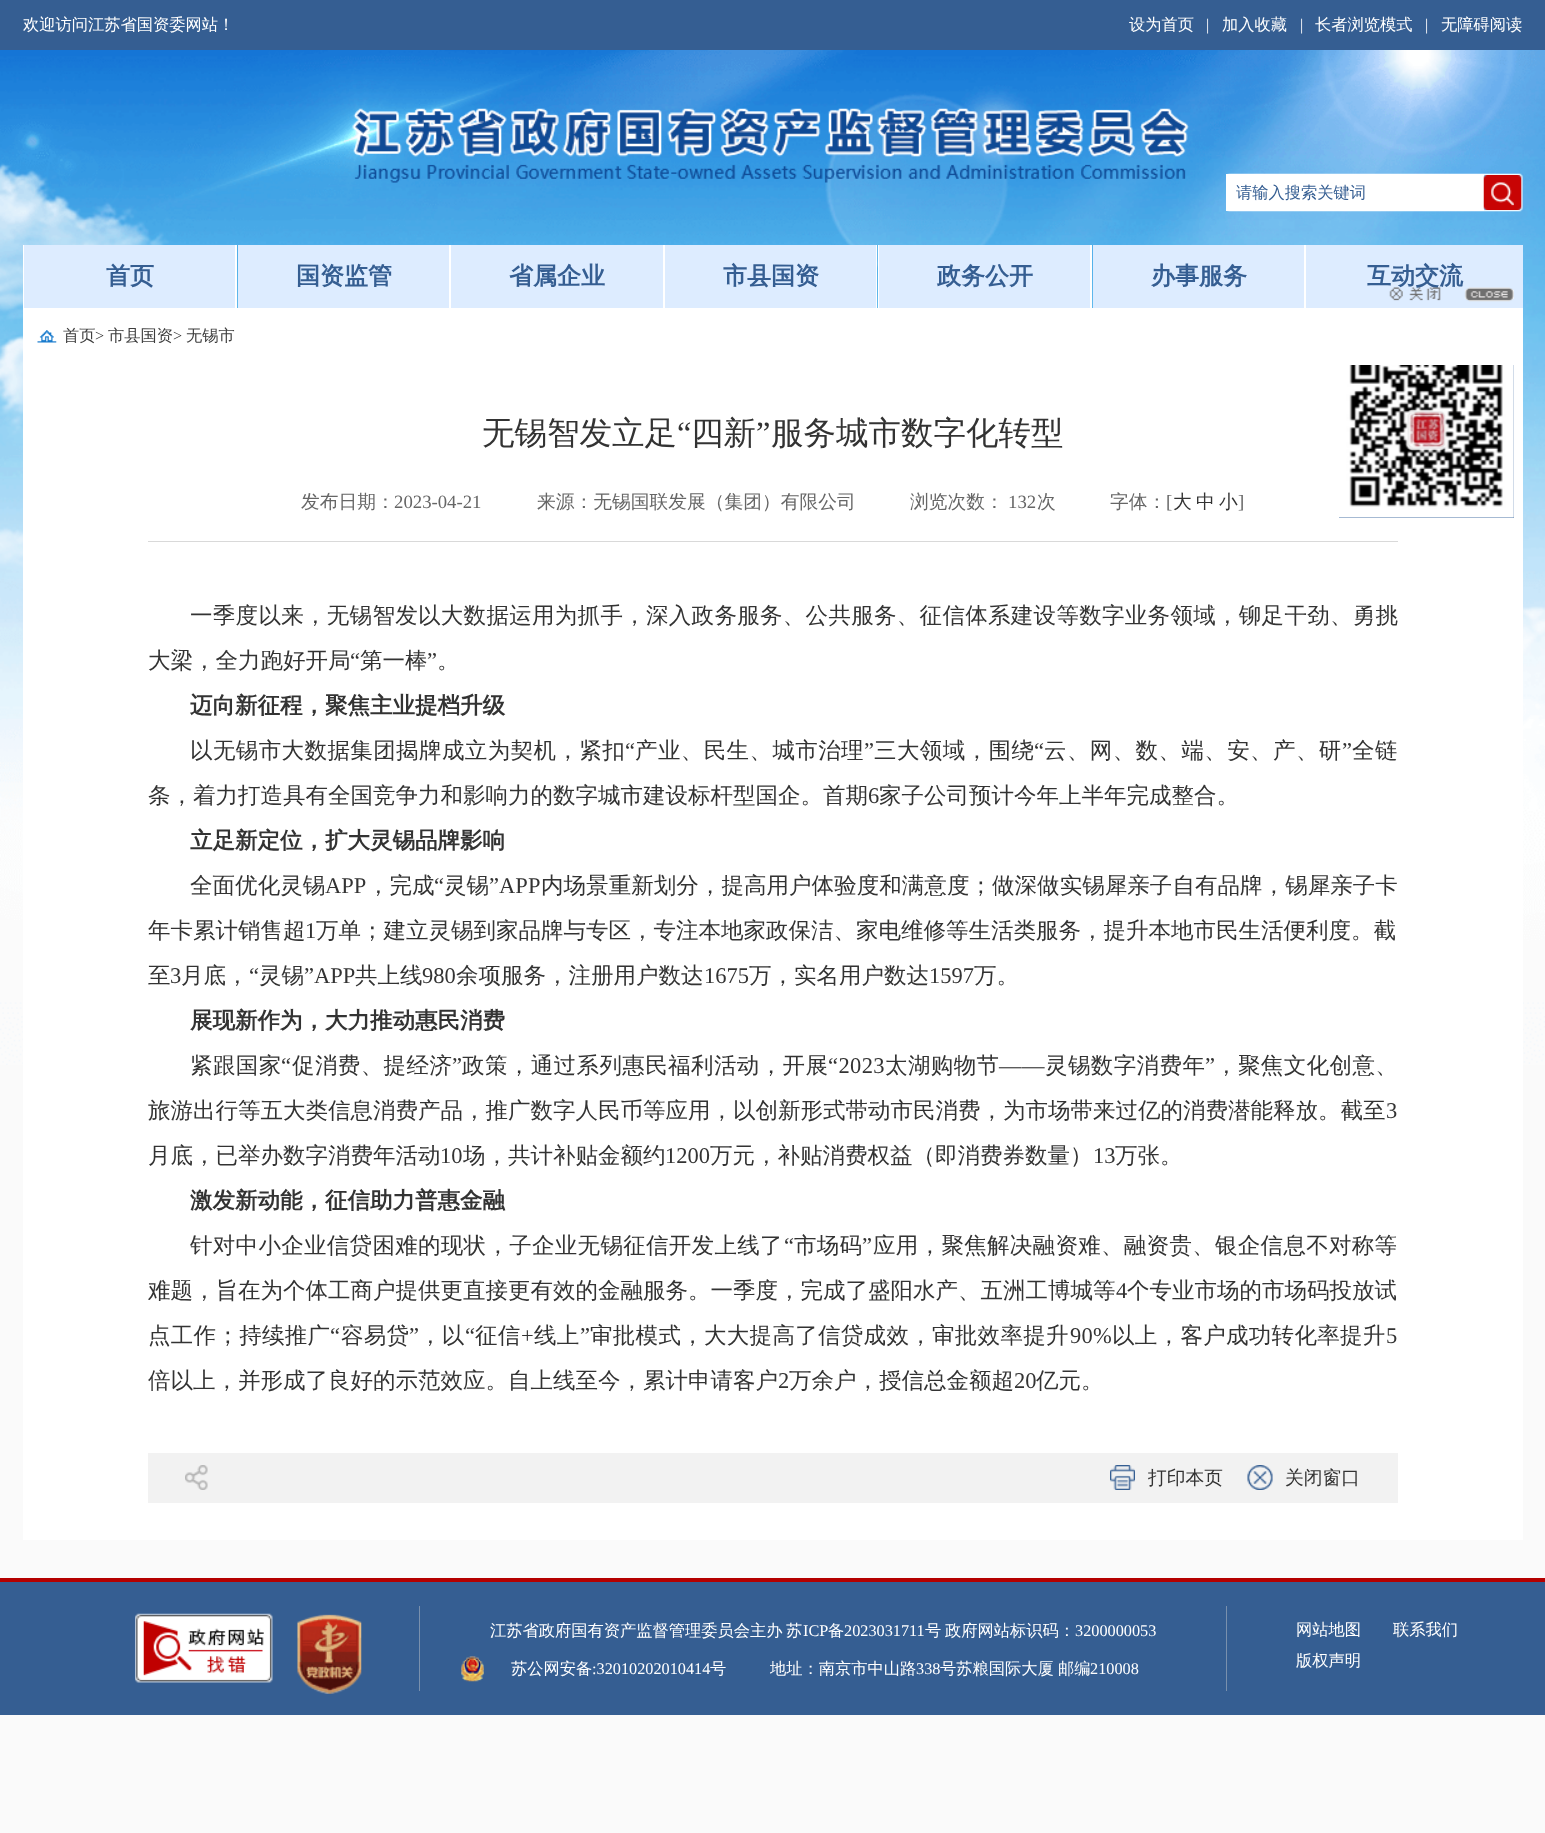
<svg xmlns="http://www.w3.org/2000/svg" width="1545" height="1833">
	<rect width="100%" height="100%" fill="#FAFAFA" />
	<image x="0" y="50" width="1545" height="1015" href="assets/img1.png" />
	<rect x="0" y="0" width="1545" height="50" fill="#355E92" />
	<g font-family="WenQuanYi Zen Hei" font-size="16.25" font-weight="500" fill="#FFFFFF">
		<text x="23" y="30">欢迎访问江苏省国资委网站！</text>
		<text x="1129" y="30">设为首页</text>
	</g>
	<text x="1206" y="30" font-family="Liberation Serif" font-size="16.25" fill="#FFFFFF">|</text>
	<text x="1222" y="30" font-family="WenQuanYi Zen Hei" font-size="16.25" font-weight="500" fill="#FFFFFF">加入收藏</text>
	<text x="1300" y="30" font-family="Liberation Serif" font-size="16.25" fill="#FFFFFF">|</text>
	<text x="1315" y="30" font-family="WenQuanYi Zen Hei" font-size="16.25" font-weight="500" fill="#FFFFFF">长者浏览模式</text>
	<text x="1425" y="30" font-family="Liberation Serif" font-size="16.25" fill="#FFFFFF">|</text>
	<text x="1441" y="30" font-family="WenQuanYi Zen Hei" font-size="16.25" font-weight="500" fill="#FFFFFF">无障碍阅读</text>
	<image x="352" y="108" width="837" height="75" href="assets/img2.png" />
	<image x="1227" y="173" width="296" height="39" href="assets/img3.png" />
	<rect x="1226" y="174" width="258" height="37" fill="#FFFFFF" />
	<text x="1236" y="198" font-family="WenQuanYi Zen Hei" font-size="16.25" font-weight="500" fill="#355E92">请输入搜索关键词</text>
	<image x="1483" y="175" width="39" height="35" href="assets/img4.png" />
	<rect x="235" y="245" width="2" height="63" fill="#FFFFFF" />
	<rect x="23" y="245" width="1" height="63" fill="#FFFFFF" />
	<rect x="24" y="245" width="211" height="63" fill="#DDECFF" />
	<text x="106" y="284" font-family="WenQuanYi Zen Hei" font-size="24" font-weight="700" fill="#355E92">首页</text>
	<rect x="449" y="245" width="2" height="63" fill="#FFFFFF" />
	<rect x="238" y="245" width="211" height="63" fill="#DDECFF" />
	<text x="296" y="284" font-family="WenQuanYi Zen Hei" font-size="24" font-weight="700" fill="#355E92">国资监管</text>
	<rect x="663" y="245" width="2" height="63" fill="#FFFFFF" />
	<rect x="451" y="245" width="212" height="63" fill="#DDECFF" />
	<text x="509" y="284" font-family="WenQuanYi Zen Hei" font-size="24" font-weight="700" fill="#355E92">省属企业</text>
	<rect x="876" y="245" width="1" height="63" fill="#FFFFFF" />
	<rect x="665" y="245" width="211" height="63" fill="#DDECFF" />
	<text x="723" y="284" font-family="WenQuanYi Zen Hei" font-size="24" font-weight="700" fill="#355E92">市县国资</text>
	<rect x="1090" y="245" width="2" height="63" fill="#FFFFFF" />
	<rect x="878" y="245" width="1" height="63" fill="#FFFFFF" />
	<rect x="879" y="245" width="211" height="63" fill="#DDECFF" />
	<text x="937" y="284" font-family="WenQuanYi Zen Hei" font-size="24" font-weight="700" fill="#355E92">政务公开</text>
	<rect x="1304" y="245" width="2" height="63" fill="#FFFFFF" />
	<rect x="1093" y="245" width="211" height="63" fill="#DDECFF" />
	<text x="1151" y="284" font-family="WenQuanYi Zen Hei" font-size="24" font-weight="700" fill="#355E92">办事服务</text>
	<rect x="1306" y="245" width="217" height="63" fill="#DDECFF" />
	<text x="1367" y="284" font-family="WenQuanYi Zen Hei" font-size="24" font-weight="700" fill="#355E92">互动交流</text>
	<rect x="23" y="308" width="1500" height="1232" fill="#FFFFFF" />
	<image x="37" y="330" width="20" height="13" href="assets/img5.png" />
	<text x="63" y="341" font-family="WenQuanYi Zen Hei" font-size="16.25" font-weight="500" fill="#3D3D3D">首页</text>
	<text x="95" y="341" font-family="Liberation Serif" font-size="16.25" fill="#333333">&gt;</text>
	<text x="108" y="341" font-family="WenQuanYi Zen Hei" font-size="16.25" font-weight="500" fill="#3D3D3D">市县国资</text>
	<text x="173" y="341" font-family="Liberation Serif" font-size="16.25" fill="#333333">&gt;</text>
	<text x="186" y="341" font-family="WenQuanYi Zen Hei" font-size="16.25" font-weight="500" fill="#3D3D3D">无锡市</text>
	<rect x="1339" y="365" width="175" height="153" fill="#4D75A6" />
	<image x="1389" y="287" width="125" height="15" href="assets/img6.png" />
	<image x="1338" y="365" width="176" height="153" href="assets/img7.png" />
	<text x="482" y="444" font-family="WenQuanYi Zen Hei" font-size="32.5" font-weight="500" fill="#333333">无锡智发立足</text>
	<text x="677" y="444" font-family="Liberation Serif" font-size="32.5" fill="#333333">“</text>
	<text x="691" y="444" font-family="WenQuanYi Zen Hei" font-size="32.5" font-weight="500" fill="#333333">四新</text>
	<text x="756" y="444" font-family="Liberation Serif" font-size="32.5" fill="#333333">”</text>
	<text x="771" y="444" font-family="WenQuanYi Zen Hei" font-size="32.5" font-weight="500" fill="#333333">服务城市数字化转型</text>
	<rect x="148" y="541" width="1250" height="1" fill="#D9D9D9" />
	<text x="301" y="508" font-family="WenQuanYi Zen Hei" font-size="18.75" font-weight="500" fill="#666666">发布日期：</text>
	<text x="394" y="508" font-family="Liberation Serif" font-size="18.75" fill="#666666">2023-04-21</text>
	<g font-family="WenQuanYi Zen Hei" font-size="18.75" font-weight="500" fill="#666666">
		<text x="537" y="508">来源：无锡国联发展（集团）有限公司</text>
		<text x="910" y="508">浏览次数：</text>
	</g>
	<text x="1008" y="508" font-family="Liberation Serif" font-size="18.75" fill="#666666">132</text>
	<g font-family="WenQuanYi Zen Hei" font-size="18.75" font-weight="500" fill="#666666">
		<text x="1037" y="508">次</text>
		<text x="1110" y="508">字体：</text>
	</g>
	<text x="1166" y="508" font-family="Liberation Serif" font-size="18.75" fill="#666666">[</text>
	<g font-family="WenQuanYi Zen Hei" font-size="18.75" font-weight="500" fill="#333333">
		<text x="1173" y="508">大</text>
		<text x="1196" y="508">中</text>
		<text x="1219" y="508">小</text>
	</g>
	<text x="1238" y="508" font-family="Liberation Serif" font-size="18.75" fill="#666666">]</text>
	<text x="190" y="623" font-family="WenQuanYi Zen Hei" font-size="22.5" font-weight="500" letter-spacing="0.3" fill="#333333">一季度以来，无锡智发以大数据运用为抓手，深入政务服务、公共服务、征信体系建设等数字业务领域，铆足干劲、勇挑</text>
	<text x="148" y="668" font-family="WenQuanYi Zen Hei" font-size="22.5" font-weight="500" fill="#333333">大梁，全力跑好开局</text>
	<text x="350" y="668" font-family="Liberation Serif" font-size="22.5" fill="#333333">“</text>
	<text x="360" y="668" font-family="WenQuanYi Zen Hei" font-size="22.5" font-weight="500" fill="#333333">第一棒</text>
	<text x="427" y="668" font-family="Liberation Serif" font-size="22.5" fill="#333333">”</text>
	<text x="437" y="668" font-family="WenQuanYi Zen Hei" font-size="22.5" font-weight="500" fill="#333333">。</text>
	<text x="190" y="713" font-family="WenQuanYi Zen Hei" font-size="22.5" font-weight="700" fill="#333333">迈向新征程，聚焦主业提档升级</text>
	<text x="190" y="758" font-family="WenQuanYi Zen Hei" font-size="22.5" font-weight="500" letter-spacing="0.4" fill="#333333">以无锡市大数据集团揭牌成立为契机，紧扣</text>
	<text x="625" y="758" font-family="Liberation Serif" font-size="22.5" letter-spacing="0.4" fill="#333333">“</text>
	<text x="635" y="758" font-family="WenQuanYi Zen Hei" font-size="22.5" font-weight="500" letter-spacing="0.4" fill="#333333">产业、民生、城市治理</text>
	<text x="864" y="758" font-family="Liberation Serif" font-size="22.5" letter-spacing="0.4" fill="#333333">”</text>
	<text x="874" y="758" font-family="WenQuanYi Zen Hei" font-size="22.5" font-weight="500" letter-spacing="0.4" fill="#333333">三大领域，围绕</text>
	<text x="1034" y="758" font-family="Liberation Serif" font-size="22.5" letter-spacing="0.4" fill="#333333">“</text>
	<text x="1044" y="758" font-family="WenQuanYi Zen Hei" font-size="22.5" font-weight="500" letter-spacing="0.4" fill="#333333">云、网、数、端、安、产、研</text>
	<text x="1342" y="758" font-family="Liberation Serif" font-size="22.5" letter-spacing="0.4" fill="#333333">”</text>
	<text x="1352" y="758" font-family="WenQuanYi Zen Hei" font-size="22.5" font-weight="500" letter-spacing="0.4" fill="#333333">全链</text>
	<text x="148" y="803" font-family="WenQuanYi Zen Hei" font-size="22.5" font-weight="500" fill="#333333">条，着力打造具有全国竞争力和影响力的数字城市建设标杆型国企。首期</text>
	<text x="868" y="803" font-family="Liberation Serif" font-size="22.5" fill="#333333">6</text>
	<text x="879" y="803" font-family="WenQuanYi Zen Hei" font-size="22.5" font-weight="500" fill="#333333">家子公司预计今年上半年完成整合。</text>
	<text x="190" y="848" font-family="WenQuanYi Zen Hei" font-size="22.5" font-weight="700" fill="#333333">立足新定位，扩大灵锡品牌影响</text>
	<text x="190" y="893" font-family="WenQuanYi Zen Hei" font-size="22.5" font-weight="500" letter-spacing="0.05" fill="#333333">全面优化灵锡</text>
	<text x="325" y="893" font-family="Liberation Serif" font-size="22.5" letter-spacing="0.05" fill="#333333">APP</text>
	<text x="367" y="893" font-family="WenQuanYi Zen Hei" font-size="22.5" font-weight="500" letter-spacing="0.05" fill="#333333">，完成</text>
	<text x="434" y="893" font-family="Liberation Serif" font-size="22.5" letter-spacing="0.05" fill="#333333">“</text>
	<text x="444" y="893" font-family="WenQuanYi Zen Hei" font-size="22.5" font-weight="500" letter-spacing="0.05" fill="#333333">灵锡</text>
	<text x="489" y="893" font-family="Liberation Serif" font-size="22.5" letter-spacing="0.05" fill="#333333">”APP</text>
	<text x="541" y="893" font-family="WenQuanYi Zen Hei" font-size="22.5" font-weight="500" letter-spacing="0.05" fill="#333333">内场景重新划分，提高用户体验度和满意度；做深做实锡犀亲子自有品牌，锡犀亲子卡</text>
	<text x="148" y="938" font-family="WenQuanYi Zen Hei" font-size="22.5" font-weight="500" fill="#333333">年卡累计销售超</text>
	<text x="305" y="938" font-family="Liberation Serif" font-size="22.5" fill="#333333">1</text>
	<g font-family="WenQuanYi Zen Hei" font-size="22.5" font-weight="500" fill="#333333">
		<text x="316" y="938">万单；建立灵锡到家品牌与专区，专注本地家政保洁、家电维修等生活类服务，提升本地市民生活便利度。截</text>
		<text x="148" y="983">至</text>
	</g>
	<text x="170" y="983" font-family="Liberation Serif" font-size="22.5" fill="#333333">3</text>
	<text x="181" y="983" font-family="WenQuanYi Zen Hei" font-size="22.5" font-weight="500" fill="#333333">月底，</text>
	<text x="249" y="983" font-family="Liberation Serif" font-size="22.5" fill="#333333">“</text>
	<text x="259" y="983" font-family="WenQuanYi Zen Hei" font-size="22.5" font-weight="500" fill="#333333">灵锡</text>
	<text x="304" y="983" font-family="Liberation Serif" font-size="22.5" fill="#333333">”APP</text>
	<text x="355" y="983" font-family="WenQuanYi Zen Hei" font-size="22.5" font-weight="500" fill="#333333">共上线</text>
	<text x="422" y="983" font-family="Liberation Serif" font-size="22.5" fill="#333333">980</text>
	<text x="456" y="983" font-family="WenQuanYi Zen Hei" font-size="22.5" font-weight="500" fill="#333333">余项服务，注册用户数达</text>
	<text x="704" y="983" font-family="Liberation Serif" font-size="22.5" fill="#333333">1675</text>
	<text x="749" y="983" font-family="WenQuanYi Zen Hei" font-size="22.5" font-weight="500" fill="#333333">万，实名用户数达</text>
	<text x="929" y="983" font-family="Liberation Serif" font-size="22.5" fill="#333333">1597</text>
	<text x="974" y="983" font-family="WenQuanYi Zen Hei" font-size="22.5" font-weight="500" fill="#333333">万。</text>
	<text x="190" y="1028" font-family="WenQuanYi Zen Hei" font-size="22.5" font-weight="700" fill="#333333">展现新作为，大力推动惠民消费</text>
	<text x="190" y="1073" font-family="WenQuanYi Zen Hei" font-size="22.5" font-weight="500" letter-spacing="0.4" fill="#333333">紧跟国家</text>
	<text x="281" y="1073" font-family="Liberation Serif" font-size="22.5" letter-spacing="0.4" fill="#333333">“</text>
	<text x="292" y="1073" font-family="WenQuanYi Zen Hei" font-size="22.5" font-weight="500" letter-spacing="0.4" fill="#333333">促消费、提经济</text>
	<text x="452" y="1073" font-family="Liberation Serif" font-size="22.5" letter-spacing="0.4" fill="#333333">”</text>
	<text x="462" y="1073" font-family="WenQuanYi Zen Hei" font-size="22.5" font-weight="500" letter-spacing="0.4" fill="#333333">政策，通过系列惠民福利活动，开展</text>
	<text x="828" y="1073" font-family="Liberation Serif" font-size="22.5" letter-spacing="0.4" fill="#333333">“2023</text>
	<g font-family="WenQuanYi Zen Hei" font-size="22.5" font-weight="500" letter-spacing="0.4" fill="#333333">
		<text x="885" y="1073">太湖购物节</text>
		<text x="1045" y="1073">灵锡数字消费年</text>
	</g>
	<text x="1205" y="1073" font-family="Liberation Serif" font-size="22.5" letter-spacing="0.4" fill="#333333">”</text>
	<text x="1215" y="1073" font-family="WenQuanYi Zen Hei" font-size="22.5" font-weight="500" letter-spacing="0.4" fill="#333333">，聚焦文化创意、</text>
	<text x="999" y="1073" font-family="Liberation Serif" font-size="22.5" letter-spacing="0.4" fill="#333333">——</text>
	<text x="148" y="1118" font-family="WenQuanYi Zen Hei" font-size="22.5" font-weight="500" fill="#333333">旅游出行等五大类信息消费产品，推广数字人民币等应用，以创新形式带动市民消费，为市场带来过亿的消费潜能释放。截至</text>
	<text x="1386" y="1118" font-family="Liberation Serif" font-size="22.5" fill="#333333">3</text>
	<text x="148" y="1163" font-family="WenQuanYi Zen Hei" font-size="22.5" font-weight="500" fill="#333333">月底，已举办数字消费年活动</text>
	<text x="440" y="1163" font-family="Liberation Serif" font-size="22.5" fill="#333333">10</text>
	<text x="463" y="1163" font-family="WenQuanYi Zen Hei" font-size="22.5" font-weight="500" fill="#333333">场，共计补贴金额约</text>
	<text x="665" y="1163" font-family="Liberation Serif" font-size="22.5" fill="#333333">1200</text>
	<text x="710" y="1163" font-family="WenQuanYi Zen Hei" font-size="22.5" font-weight="500" fill="#333333">万元，补贴消费权益（即消费券数量）</text>
	<text x="1093" y="1163" font-family="Liberation Serif" font-size="22.5" fill="#333333">13</text>
	<text x="1115" y="1163" font-family="WenQuanYi Zen Hei" font-size="22.5" font-weight="500" fill="#333333">万张。</text>
	<text x="190" y="1208" font-family="WenQuanYi Zen Hei" font-size="22.5" font-weight="700" fill="#333333">激发新动能，征信助力普惠金融</text>
	<text x="190" y="1253" font-family="WenQuanYi Zen Hei" font-size="22.5" font-weight="500" letter-spacing="0.3" fill="#333333">针对中小企业信贷困难的现状，子企业无锡征信开发上线了</text>
	<text x="784" y="1253" font-family="Liberation Serif" font-size="22.5" letter-spacing="0.3" fill="#333333">“</text>
	<text x="794" y="1253" font-family="WenQuanYi Zen Hei" font-size="22.5" font-weight="500" letter-spacing="0.3" fill="#333333">市场码</text>
	<text x="862" y="1253" font-family="Liberation Serif" font-size="22.5" letter-spacing="0.3" fill="#333333">”</text>
	<text x="873" y="1253" font-family="WenQuanYi Zen Hei" font-size="22.5" font-weight="500" letter-spacing="0.3" fill="#333333">应用，聚焦解决融资难、融资贵、银企信息不对称等</text>
	<text x="148" y="1298" font-family="WenQuanYi Zen Hei" font-size="22.5" font-weight="500" fill="#333333">难题，旨在为个体工商户提供更直接更有效的金融服务。一季度，完成了盛阳水产、五洲工博城等</text>
	<text x="1116" y="1298" font-family="Liberation Serif" font-size="22.5" fill="#333333">4</text>
	<text x="1127" y="1298" font-family="WenQuanYi Zen Hei" font-size="22.5" font-weight="500" fill="#333333">个专业市场的市场码投放试</text>
	<text x="148" y="1343" font-family="WenQuanYi Zen Hei" font-size="22.5" font-weight="500" letter-spacing="0.3" fill="#333333">点工作；持续推广</text>
	<text x="330" y="1343" font-family="Liberation Serif" font-size="22.5" letter-spacing="0.3" fill="#333333">“</text>
	<text x="341" y="1343" font-family="WenQuanYi Zen Hei" font-size="22.5" font-weight="500" letter-spacing="0.3" fill="#333333">容易贷</text>
	<text x="409" y="1343" font-family="Liberation Serif" font-size="22.5" letter-spacing="0.3" fill="#333333">”</text>
	<text x="419" y="1343" font-family="WenQuanYi Zen Hei" font-size="22.5" font-weight="500" letter-spacing="0.3" fill="#333333">，以</text>
	<text x="465" y="1343" font-family="Liberation Serif" font-size="22.5" letter-spacing="0.3" fill="#333333">“</text>
	<text x="475" y="1343" font-family="WenQuanYi Zen Hei" font-size="22.5" font-weight="500" letter-spacing="0.3" fill="#333333">征信</text>
	<text x="521" y="1343" font-family="Liberation Serif" font-size="22.5" letter-spacing="0.3" fill="#333333">+</text>
	<text x="534" y="1343" font-family="WenQuanYi Zen Hei" font-size="22.5" font-weight="500" letter-spacing="0.3" fill="#333333">线上</text>
	<text x="580" y="1343" font-family="Liberation Serif" font-size="22.5" letter-spacing="0.3" fill="#333333">”</text>
	<text x="590" y="1343" font-family="WenQuanYi Zen Hei" font-size="22.5" font-weight="500" letter-spacing="0.3" fill="#333333">审批模式，大大提高了信贷成效，审批效率提升</text>
	<text x="1070" y="1343" font-family="Liberation Serif" font-size="22.5" letter-spacing="0.3" fill="#333333">90%</text>
	<text x="1112" y="1343" font-family="WenQuanYi Zen Hei" font-size="22.5" font-weight="500" letter-spacing="0.3" fill="#333333">以上，客户成功转化率提升</text>
	<text x="1386" y="1343" font-family="Liberation Serif" font-size="22.5" letter-spacing="0.3" fill="#333333">5</text>
	<text x="148" y="1388" font-family="WenQuanYi Zen Hei" font-size="22.5" font-weight="500" fill="#333333">倍以上，并形成了良好的示范效应。自上线至今，累计申请客户</text>
	<text x="778" y="1388" font-family="Liberation Serif" font-size="22.5" fill="#333333">2</text>
	<text x="789" y="1388" font-family="WenQuanYi Zen Hei" font-size="22.5" font-weight="500" fill="#333333">万余户，授信总金额超</text>
	<text x="1014" y="1388" font-family="Liberation Serif" font-size="22.5" fill="#333333">20</text>
	<text x="1036" y="1388" font-family="WenQuanYi Zen Hei" font-size="22.5" font-weight="500" fill="#333333">亿元。</text>
	<rect x="148" y="1453" width="1250" height="50" fill="#F2F2F2" />
	<image x="185" y="1465" width="23" height="25" href="assets/img8.png" />
	<image x="1110" y="1465" width="25" height="25" href="assets/img9.png" />
	<text x="1148" y="1484" font-family="WenQuanYi Zen Hei" font-size="18.75" font-weight="500" fill="#333333">打印本页</text>
	<image x="1247" y="1465" width="26" height="25" href="assets/img10.png" />
	<text x="1285" y="1484" font-family="WenQuanYi Zen Hei" font-size="18.75" font-weight="500" fill="#333333">关闭窗口</text>
	<rect x="0" y="1582" width="1545" height="133" fill="#355E92" />
	<rect x="0" y="1578" width="1545" height="4" fill="#B40000" />
	<rect x="419" y="1606" width="1" height="85" fill="#7990AD" />
	<image x="135" y="1613" width="138" height="70" href="assets/img11.png" />
	<image x="297" y="1614" width="65" height="80" href="assets/img12.png" />
	<rect x="1226" y="1606" width="1" height="85" fill="#7990AD" />
	<g font-family="WenQuanYi Zen Hei" font-size="16.25" font-weight="500" fill="#FFFFFF">
		<text x="490" y="1636">江苏省政府国有资产监督管理委员会主办</text>
		<text x="786" y="1636">苏</text>
	</g>
	<text x="803" y="1636" font-family="Liberation Serif" font-size="16.25" fill="#FFFFFF">ICP</text>
	<text x="828" y="1636" font-family="WenQuanYi Zen Hei" font-size="16.25" font-weight="500" fill="#FFFFFF">备</text>
	<text x="844" y="1636" font-family="Liberation Serif" font-size="16.25" fill="#FFFFFF">2023031711</text>
	<g font-family="WenQuanYi Zen Hei" font-size="16.25" font-weight="500" fill="#FFFFFF">
		<text x="925" y="1636">号</text>
		<text x="945" y="1636">政府网站标识码：</text>
	</g>
	<text x="1075" y="1636" font-family="Liberation Serif" font-size="16.25" fill="#FFFFFF">3200000053</text>
	<image x="461" y="1656" width="23" height="26" href="assets/img13.png" />
	<text x="511" y="1674" font-family="WenQuanYi Zen Hei" font-size="16.25" font-weight="500" fill="#FFFFFF">苏公网安备</text>
	<text x="592" y="1674" font-family="Liberation Serif" font-size="16.25" fill="#FFFFFF">:32010202010414</text>
	<g font-family="WenQuanYi Zen Hei" font-size="16.25" font-weight="500" fill="#FFFFFF">
		<text x="710" y="1674">号</text>
		<text x="770" y="1674">地址：南京市中山路</text>
	</g>
	<text x="916" y="1674" font-family="Liberation Serif" font-size="16.25" fill="#FFFFFF">338</text>
	<g font-family="WenQuanYi Zen Hei" font-size="16.25" font-weight="500" fill="#FFFFFF">
		<text x="940" y="1674">号苏粮国际大厦</text>
		<text x="1058" y="1674">邮编</text>
	</g>
	<text x="1090" y="1674" font-family="Liberation Serif" font-size="16.25" fill="#FFFFFF">210008</text>
	<g font-family="WenQuanYi Zen Hei" font-size="16.25" font-weight="500" fill="#FFFFFF">
		<text x="1296" y="1635">网站地图</text>
		<text x="1393" y="1635">联系我们</text>
		<text x="1296" y="1666">版权声明</text>
	</g>
</svg>
